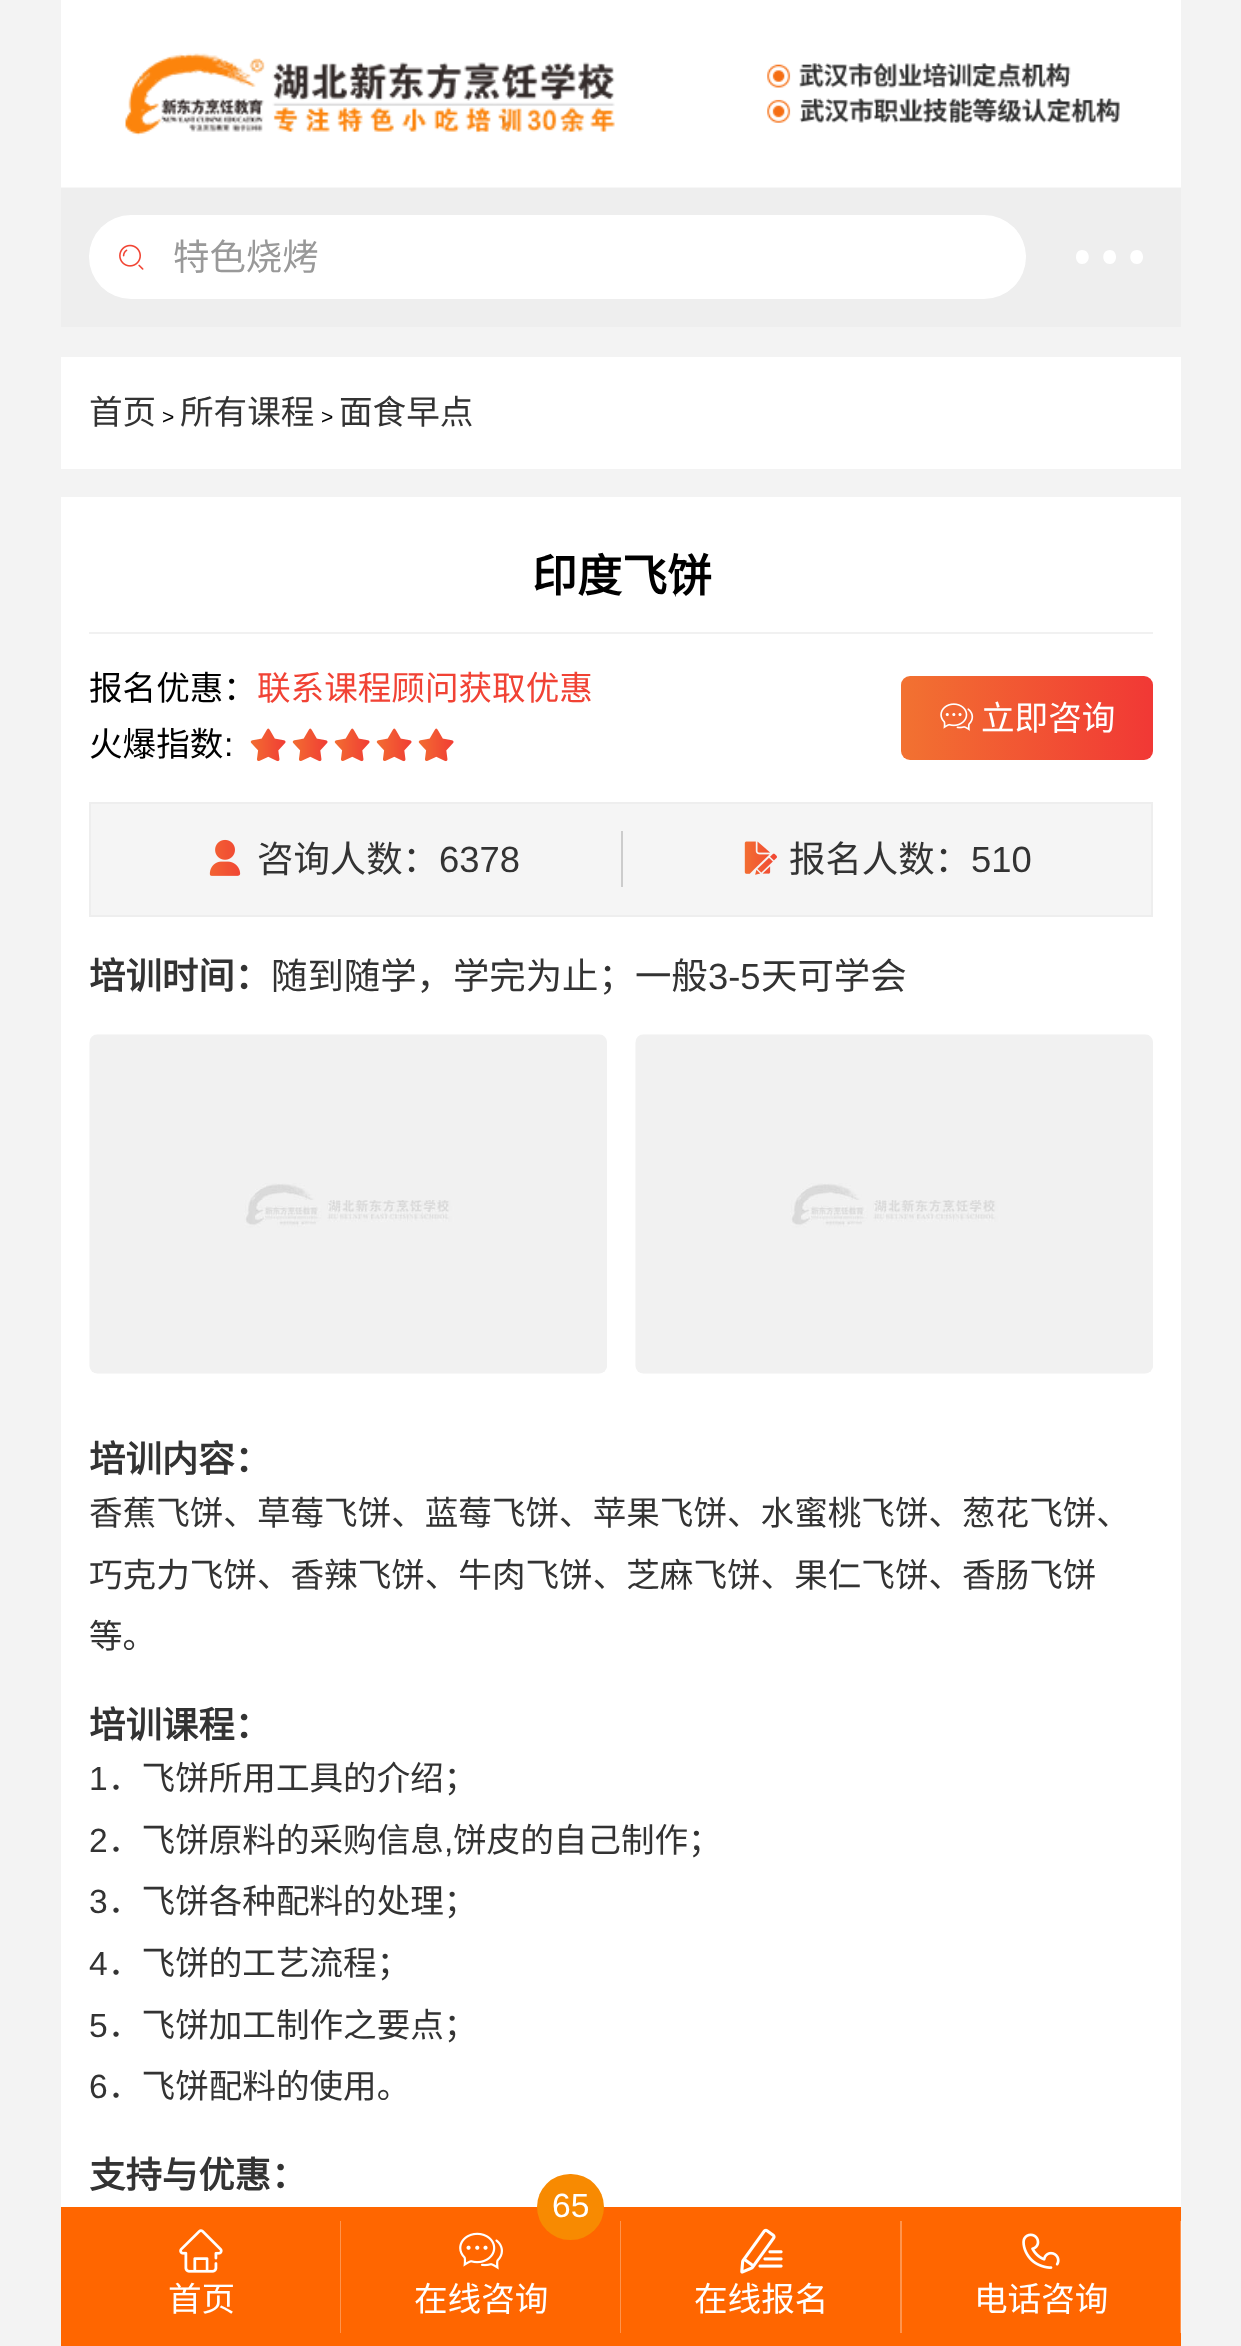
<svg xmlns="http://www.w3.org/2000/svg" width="1241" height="2346">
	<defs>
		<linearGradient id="g1" gradientUnits="userSpaceOnUse" x1="901" y1="718" x2="1153" y2="718"><stop offset="0" stop-color="#F27231" /><stop offset="1" stop-color="#F13835" /></linearGradient>
	</defs>
	<rect width="100%" height="100%" fill="#F3F3F3" />
	<rect x="1181" y="2221" width="1" height="112" fill="#F7F7F7" />
	<rect x="61" y="188" width="1120" height="139" fill="#EEEEEE" />
	<rect x="61" y="187" width="1120" height="1" fill="#F7F7F7" />
	<rect x="61" y="0" width="1120" height="187" fill="#FFFFFF" />
	<image x="125" y="53" width="490" height="83" href="assets/img1.png" />
	<image x="767" y="63" width="353" height="60" href="assets/img2.png" />
	<rect x="89" y="215" width="937" height="84" rx="42" fill="#FFFFFF" />
	<image x="119" y="244" width="25" height="26" href="assets/img3.png" />
	<text x="173" y="270" font-family="Noto Sans CJK SC" font-size="36.4" fill="#999999">特色烧烤</text>
	<path d="M1082 250C1074 250 1074 264 1082 264C1091 264 1091 250 1082 250ZM1137 250C1128 250 1128 264 1137 264C1145 264 1145 250 1137 250ZM1110 250C1101 250 1101 264 1110 264C1118 264 1118 250 1110 250Z" fill="#FFFFFF" />
	<rect x="61" y="357" width="1120" height="112" fill="#FFFFFF" />
	<text x="89" y="424" font-family="Noto Sans CJK SC" font-size="33.6" fill="#333333">首页</text>
	<text x="162" y="424" font-family="Liberation Sans" font-size="21" fill="#000000">&gt;</text>
	<text x="180" y="424" font-family="Noto Sans CJK SC" font-size="33.6" fill="#333333">所有课程</text>
	<text x="321" y="424" font-family="Liberation Sans" font-size="21" fill="#000000">&gt;</text>
	<text x="339" y="424" font-family="Noto Sans CJK SC" font-size="33.6" fill="#333333">面食早点</text>
	<rect x="61" y="497" width="1120" height="1710" fill="#FFFFFF" />
	<rect x="89" y="632" width="1064" height="2" fill="#F1F1F1" />
	<text x="532" y="592" font-family="Noto Sans CJK SC" font-size="45" font-weight="700" fill="#000000">印度飞饼</text>
	<text x="89" y="700" font-family="Noto Sans CJK SC" font-size="33.6" fill="#000000">报名优惠：</text>
	<text x="257" y="700" font-family="Noto Sans CJK SC" font-size="33.6" fill="#F14234">联系课程顾问获取优惠</text>
	<rect x="901" y="676" width="252" height="84" rx="9" fill="url(#g1)" />
	<image x="940" y="703" width="34" height="28" href="assets/img4.png" />
	<text x="981" y="730" font-family="Noto Sans CJK SC" font-size="33.6" fill="#FFFFFF">立即咨询</text>
	<text x="89" y="756" font-family="Noto Sans CJK SC" font-size="33.6" fill="#000000">火爆指数</text>
	<text x="224" y="756" font-family="Liberation Sans" font-size="33.6" fill="#000000">:</text>
	<image x="250" y="728" width="36" height="34" href="assets/img5.png" />
	<image x="292" y="728" width="36" height="34" href="assets/img5.png" />
	<image x="334" y="728" width="36" height="34" href="assets/img5.png" />
	<image x="376" y="728" width="36" height="34" href="assets/img5.png" />
	<image x="418" y="728" width="36" height="34" href="assets/img5.png" />
	<rect x="90" y="803" width="1062" height="113" fill="#F5F5F5" stroke="#EEEEEE" stroke-width="2" />
	<image x="209" y="839" width="32" height="37" href="assets/img6.png" />
	<text x="257" y="872" font-family="Noto Sans CJK SC" font-size="36.4" fill="#333333">咨询人数：</text>
	<text x="439" y="872" font-family="Liberation Sans" font-size="36.4" fill="#333333">6378</text>
	<rect x="621" y="831" width="2" height="56" fill="#CCCCCC" />
	<image x="744" y="841" width="33" height="34" href="assets/img7.png" />
	<text x="789" y="872" font-family="Noto Sans CJK SC" font-size="36.4" fill="#333333">报名人数：</text>
	<text x="971" y="872" font-family="Liberation Sans" font-size="36.4" fill="#333333">510</text>
	<text x="89" y="989" font-family="Noto Sans CJK SC" font-size="36.4" font-weight="700" fill="#333333">培训时间：</text>
	<text x="271" y="989" font-family="Noto Sans CJK SC" font-size="36.4" fill="#333333">随到随学，学完为止；一般</text>
	<text x="708" y="989" font-family="Liberation Sans" font-size="36.4" fill="#333333">3-5</text>
	<text x="761" y="989" font-family="Noto Sans CJK SC" font-size="36.4" fill="#333333">天可学会</text>
	<image x="89" y="1034" width="518" height="340" href="assets/img8.png" />
	<image x="635" y="1034" width="518" height="340" href="assets/img9.png" />
	<text x="89" y="1472" font-family="Noto Sans CJK SC" font-size="36.4" font-weight="700" fill="#333333">培训内容：</text>
	<g font-family="Noto Sans CJK SC" font-size="33.6" fill="#333333">
		<text x="89" y="1525">香蕉飞饼、草莓飞饼、蓝莓飞饼、苹果飞饼、水蜜桃飞饼、葱花飞饼、</text>
		<text x="89" y="1587">巧克力飞饼、香辣飞饼、牛肉飞饼、芝麻飞饼、果仁飞饼、香肠飞饼</text>
		<text x="89" y="1648">等。</text>
	</g>
	<text x="89" y="1738" font-family="Noto Sans CJK SC" font-size="36.4" font-weight="700" fill="#333333">培训课程：</text>
	<text x="89" y="1790" font-family="Liberation Sans" font-size="33.6" fill="#333333">1</text>
	<text x="108" y="1790" font-family="Noto Sans CJK SC" font-size="33.6" fill="#333333">．飞饼所用工具的介绍；</text>
	<text x="89" y="1852" font-family="Liberation Sans" font-size="33.6" fill="#333333">2</text>
	<text x="108" y="1852" font-family="Noto Sans CJK SC" font-size="33.6" fill="#333333">．飞饼原料的采购信息</text>
	<text x="444" y="1852" font-family="Liberation Sans" font-size="33.6" fill="#333333">,</text>
	<text x="453" y="1852" font-family="Noto Sans CJK SC" font-size="33.6" fill="#333333">饼皮的自己制作；</text>
	<text x="89" y="1913" font-family="Liberation Sans" font-size="33.6" fill="#333333">3</text>
	<text x="108" y="1913" font-family="Noto Sans CJK SC" font-size="33.6" fill="#333333">．飞饼各种配料的处理；</text>
	<text x="89" y="1975" font-family="Liberation Sans" font-size="33.6" fill="#333333">4</text>
	<text x="108" y="1975" font-family="Noto Sans CJK SC" font-size="33.6" fill="#333333">．飞饼的工艺流程；</text>
	<text x="89" y="2037" font-family="Liberation Sans" font-size="33.6" fill="#333333">5</text>
	<text x="108" y="2037" font-family="Noto Sans CJK SC" font-size="33.6" fill="#333333">．飞饼加工制作之要点；</text>
	<text x="89" y="2098" font-family="Liberation Sans" font-size="33.6" fill="#333333">6</text>
	<text x="108" y="2098" font-family="Noto Sans CJK SC" font-size="33.6" fill="#333333">．飞饼配料的使用。</text>
	<text x="89" y="2188" font-family="Noto Sans CJK SC" font-size="36.4" font-weight="700" fill="#333333">支持与优惠：</text>
	<rect x="61" y="2207" width="1120" height="139" fill="#FF6600" />
	<rect x="1180" y="2221" width="1" height="112" fill="#FF944D" />
	<image x="179" y="2229" width="44" height="44" href="assets/img10.png" />
	<text x="168" y="2311" font-family="Noto Sans CJK SC" font-size="33.6" fill="#FFFFFF">首页</text>
	<rect x="340" y="2221" width="1" height="112" fill="#FF944D" />
	<rect x="537" y="2174" width="67" height="66" rx="33" fill="#F88A01" />
	<text x="552" y="2217" font-family="Liberation Sans" font-size="33.6" fill="#FFFFFF">65</text>
	<image x="459" y="2232" width="44" height="38" href="assets/img11.png" />
	<text x="414" y="2311" font-family="Noto Sans CJK SC" font-size="33.6" fill="#FFFFFF">在线咨询</text>
	<rect x="620" y="2221" width="1" height="112" fill="#FF944D" />
	<image x="740" y="2228" width="43" height="46" href="assets/img12.png" />
	<text x="694" y="2311" font-family="Noto Sans CJK SC" font-size="33.6" fill="#FFFFFF">在线报名</text>
	<rect x="900" y="2221" width="2" height="112" fill="#FF944D" />
	<image x="1022" y="2233" width="38" height="36" href="assets/img13.png" />
	<text x="974" y="2311" font-family="Noto Sans CJK SC" font-size="33.6" fill="#FFFFFF">电话咨询</text>
</svg>
